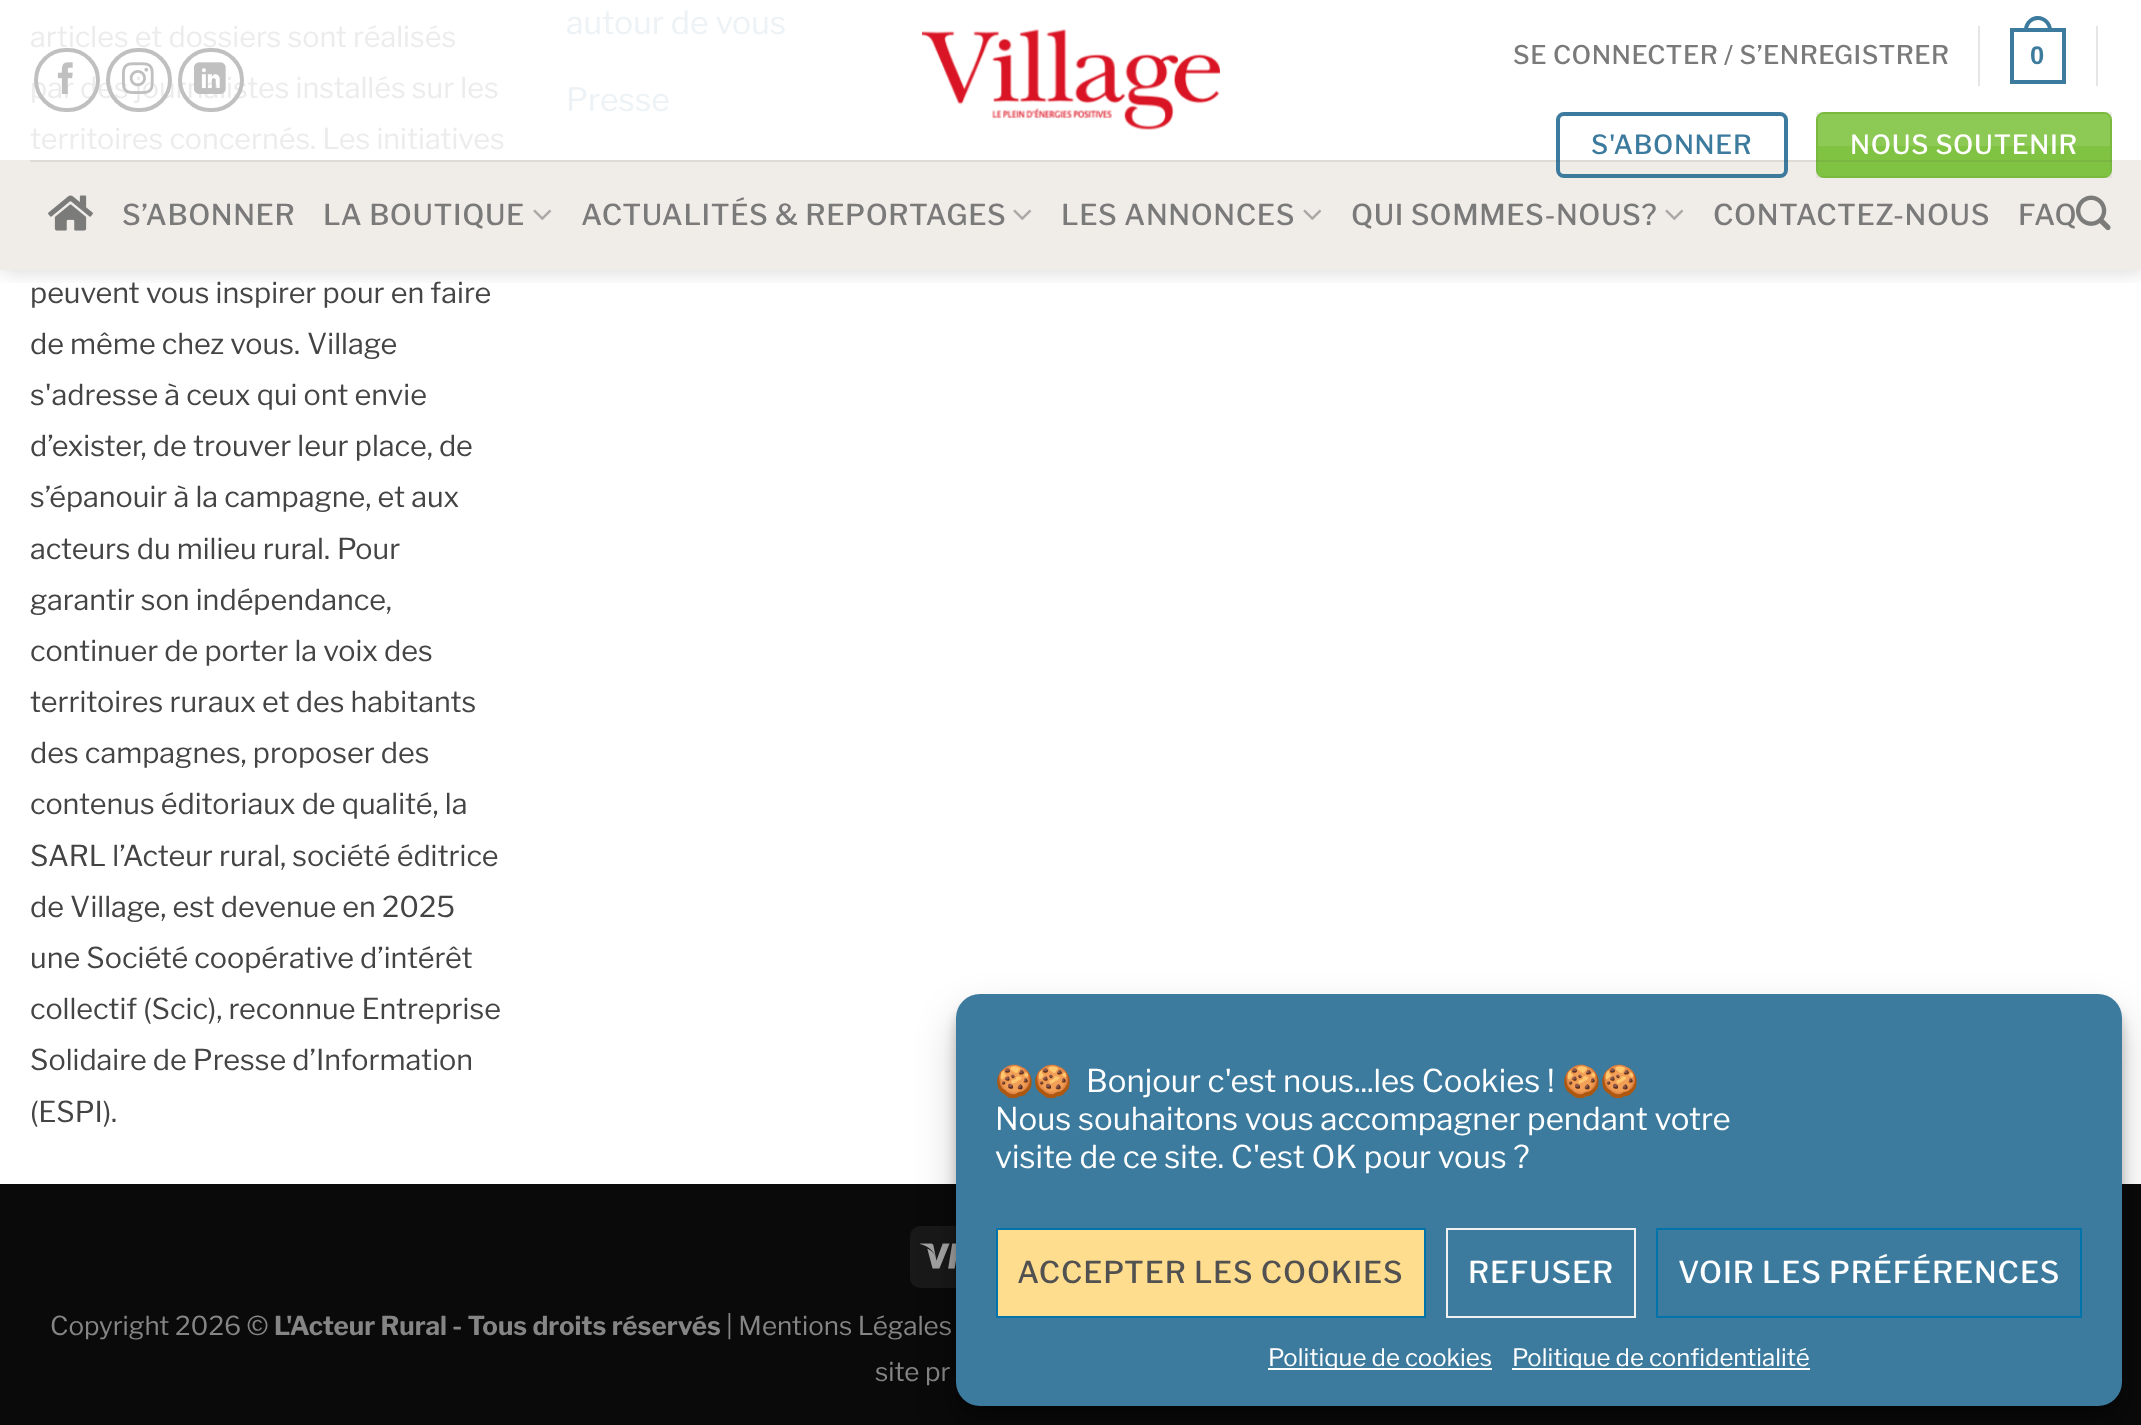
<svg xmlns="http://www.w3.org/2000/svg" width="2141" height="1425">
	<defs>
		<clipPath id="clip1"><rect x="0" y="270" width="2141" height="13" /></clipPath>
		<clipPath id="clip2"><rect x="996" y="1064" width="1086" height="124" /></clipPath>
	</defs>
	<rect width="100%" height="100%" fill="#FFFFFF" />
	<g font-family="Libre Franklin" font-size="28.75" fill="#ECECEC">
		<text x="30" y="47">articles et dossiers sont réalisés</text>
		<text x="30" y="98">par des journalistes installés sur les</text>
		<text x="30" y="149">territoires concernés. Les initiatives</text>
	</g>
	<g font-family="Libre Franklin" font-size="28.75" fill="#444444">
		<text x="30" y="303">peuvent vous inspirer pour en faire</text>
		<text x="30" y="354">de même chez vous.</text>
		<text x="307" y="354">Village</text>
		<text x="30" y="405">s'adresse à ceux qui ont envie</text>
		<text x="30" y="456">d’exister, de trouver leur place, de</text>
		<text x="30" y="507">s’épanouir à la campagne, et aux</text>
		<text x="30" y="559">acteurs du milieu rural.</text>
		<text x="337" y="559">Pour</text>
		<text x="30" y="610">garantir son indépendance,</text>
		<text x="30" y="661">continuer de porter la voix des</text>
		<text x="30" y="712">territoires ruraux et des habitants</text>
		<text x="30" y="763">des campagnes, proposer des</text>
		<text x="30" y="814">contenus éditoriaux de qualité, la</text>
		<text x="30" y="866">SARL l’Acteur rural, société éditrice</text>
		<text x="30" y="917">de Village, est devenue en 2025</text>
		<text x="30" y="968">une Société coopérative d’intérêt</text>
		<text x="30" y="1019">collectif (Scic), reconnue Entreprise</text>
		<text x="30" y="1070">Solidaire de Presse d’Information</text>
		<text x="30" y="1122">(ESPI).</text>
	</g>
	<g font-family="Libre Franklin" font-size="32" fill="#ECF2F5">
		<text x="566" y="34">autour de vous</text>
		<text x="566" y="111">Presse</text>
	</g>
	<rect x="0" y="1184" width="2141" height="241" fill="#0A0A0A" />
	<rect x="910" y="1226" width="100" height="62" rx="10" fill="#191919" />
	<image x="920" y="1243" width="36" height="26" href="assets/img1.png" />
	<text x="50" y="1335" font-family="Libre Franklin" font-size="26" fill="#858585">Copyright 2026 ©</text>
	<text x="274" y="1335" font-family="Libre Franklin" font-size="26" font-weight="700" fill="#858585">L'Acteur Rural - Tous droits réservés</text>
	<g font-family="Libre Franklin" font-size="26" fill="#858585">
		<text x="726" y="1335">| Mentions Légales</text>
		<text x="875" y="1381">site pr</text>
	</g>
	<g clip-path="url(#clip1)">
		<rect x="2" y="2" width="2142" height="270" fill="#000000" fill-opacity="0.15" filter="blur(10px)" />
	</g>
	<rect x="36" y="50" width="62" height="60" rx="30" fill="none" stroke="#C0C0C0" stroke-width="4" />
	<image x="57" y="62" width="16" height="32" href="assets/img2.png" />
	<rect x="108" y="50" width="62" height="60" rx="30" fill="none" stroke="#C0C0C0" stroke-width="4" />
	<image x="122" y="62" width="32" height="32" href="assets/img3.png" />
	<rect x="180" y="50" width="62" height="60" rx="30" fill="none" stroke="#C0C0C0" stroke-width="4" />
	<image x="194" y="62" width="32" height="32" href="assets/img4.png" />
	<image x="922" y="29" width="298" height="101" href="assets/img5.png" />
	<text x="1513" y="64" font-family="Libre Franklin" font-size="25.6" font-weight="500" letter-spacing="0.5" fill="#7B7A7A">SE CONNECTER / S’ENREGISTRER</text>
	<rect x="1978" y="26" width="2" height="60" fill="#E6E6E6" />
	<rect x="2012" y="30" width="52" height="52" fill="none" stroke="#3C7B9E" stroke-width="4" />
	<path d="M2038 16C2045.5 16 2052 22.5 2052 30V32H2024V30C2024 22.5 2030.5 16 2038 16ZM2038 20C2043.5 20 2048 24.5 2048 30V32H2028V30C2028 24.5 2032.5 20 2038 20Z" fill="#3C7B9E" fill-rule="evenodd" />
	<text x="2030" y="64" font-family="Liberation Sans" font-size="25.6" font-weight="700" letter-spacing="0.5" fill="#3C7B9E">0</text>
	<rect x="2096" y="26" width="2" height="60" fill="#E6E6E6" />
	<rect x="0" y="160" width="2141" height="110" fill="#F0EDE8" />
	<rect x="1558" y="114" width="228" height="62" rx="6" fill="none" stroke="#3C7B9E" stroke-width="4" />
	<text x="1591" y="154" font-family="Libre Franklin" font-size="26.4" font-weight="500" letter-spacing="0.75" fill="#3C7B9E">S'ABONNER</text>
	<rect x="1816" y="112" width="296" height="66" rx="8" fill="#80C342" />
	<rect x="1817" y="113" width="294" height="64" fill="none" stroke="#000000" stroke-opacity="0.05" stroke-width="2" />
	<path d="M1824 114H2104C2107.5 114 2110 116.5 2110 120V146H1818V120C1818 116.5 1820.5 114 1824 114Z" fill="#FFFFFF" fill-opacity="0.1" />
	<text x="1850" y="154" font-family="Libre Franklin" font-size="26.4" font-weight="500" letter-spacing="0.75" fill="#FFFFFF">NOUS SOUTENIR</text>
	<rect x="30" y="160" width="2082" height="2" fill="#444444" fill-opacity="0.1" />
	<image x="48" y="195" width="45" height="36" href="assets/img6.png" />
	<g font-family="Libre Franklin" font-size="28.75" font-weight="500" letter-spacing="0.6" fill="#7B7A7A">
		<text x="122" y="225">S’ABONNER</text>
		<text x="323" y="225">LA BOUTIQUE</text>
	</g>
	<image x="533" y="209" width="19" height="11" href="assets/img7.png" />
	<text x="581" y="225" font-family="Libre Franklin" font-size="28.75" font-weight="500" letter-spacing="0.6" fill="#7B7A7A">ACTUALITÉS &amp; REPORTAGES</text>
	<image x="1013" y="209" width="19" height="11" href="assets/img7.png" />
	<text x="1061" y="225" font-family="Libre Franklin" font-size="28.75" font-weight="500" letter-spacing="0.6" fill="#7B7A7A">LES ANNONCES</text>
	<image x="1303" y="209" width="19" height="11" href="assets/img7.png" />
	<text x="1351" y="225" font-family="Libre Franklin" font-size="28.75" font-weight="500" letter-spacing="0.6" fill="#7B7A7A">QUI SOMMES-NOUS?</text>
	<image x="1665" y="209" width="19" height="11" href="assets/img7.png" />
	<g font-family="Libre Franklin" font-size="28.75" font-weight="500" letter-spacing="0.6" fill="#7B7A7A">
		<text x="1713" y="225">CONTACTEZ-NOUS</text>
		<text x="2018" y="225">FAQ</text>
	</g>
	<image x="2076" y="195" width="35" height="36" href="assets/img8.png" />
	<rect x="956" y="1006" width="1166" height="412" rx="24" fill="#000000" fill-opacity="0.23" filter="blur(6px)" />
	<rect x="956" y="1014" width="1166" height="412" rx="24" fill="#000000" fill-opacity="0.19" filter="blur(20px)" />
	<rect x="956" y="994" width="1166" height="412" rx="24" fill="#3C7B9E" />
	<g clip-path="url(#clip2)">
		<text x="995" y="1092" font-family="Noto Color Emoji" font-size="31.2" fill="#FFFFFF">🍪🍪</text>
	</g>
	<text x="1086" y="1092" font-family="Libre Franklin" font-size="31.2" fill="#FFFFFF">Bonjour c'est nous...les Cookies !</text>
	<g clip-path="url(#clip2)">
		<text x="1562" y="1092" font-family="Noto Color Emoji" font-size="31.2" fill="#FFFFFF">🍪🍪</text>
	</g>
	<g font-family="Libre Franklin" font-size="31.2" fill="#FFFFFF">
		<text x="995" y="1130">Nous souhaitons vous accompagner pendant votre</text>
		<text x="995" y="1168">visite de ce site. C'est OK pour vous ?</text>
	</g>
	<rect x="997" y="1229" width="428" height="88" fill="#FFDD8E" stroke="#0073AA" stroke-width="2" />
	<text x="1017" y="1283" font-family="Libre Franklin" font-size="30" font-weight="500" letter-spacing="0.9" fill="#515151">ACCEPTER LES COOKIES</text>
	<rect x="1447" y="1229" width="188" height="88" fill="none" stroke="#F1F1F1" stroke-width="2" />
	<text x="1468" y="1283" font-family="Libre Franklin" font-size="30" font-weight="500" letter-spacing="0.9" fill="#FFFFFF">REFUSER</text>
	<rect x="1657" y="1229" width="424" height="88" fill="none" stroke="#0073AA" stroke-width="2" />
	<text x="1678" y="1283" font-family="Libre Franklin" font-size="30" font-weight="500" letter-spacing="0.9" fill="#FFFFFF">VOIR LES PRÉFÉRENCES</text>
	<rect x="1268" y="1368" width="224" height="2" fill="#FFFFFF" />
	<text x="1268" y="1366" font-family="Libre Franklin" font-size="24" fill="#FFFFFF">Politique de cookies</text>
	<rect x="1512" y="1368" width="298" height="2" fill="#FFFFFF" />
	<text x="1512" y="1366" font-family="Libre Franklin" font-size="24" fill="#FFFFFF">Politique de confidentialité</text>
</svg>
